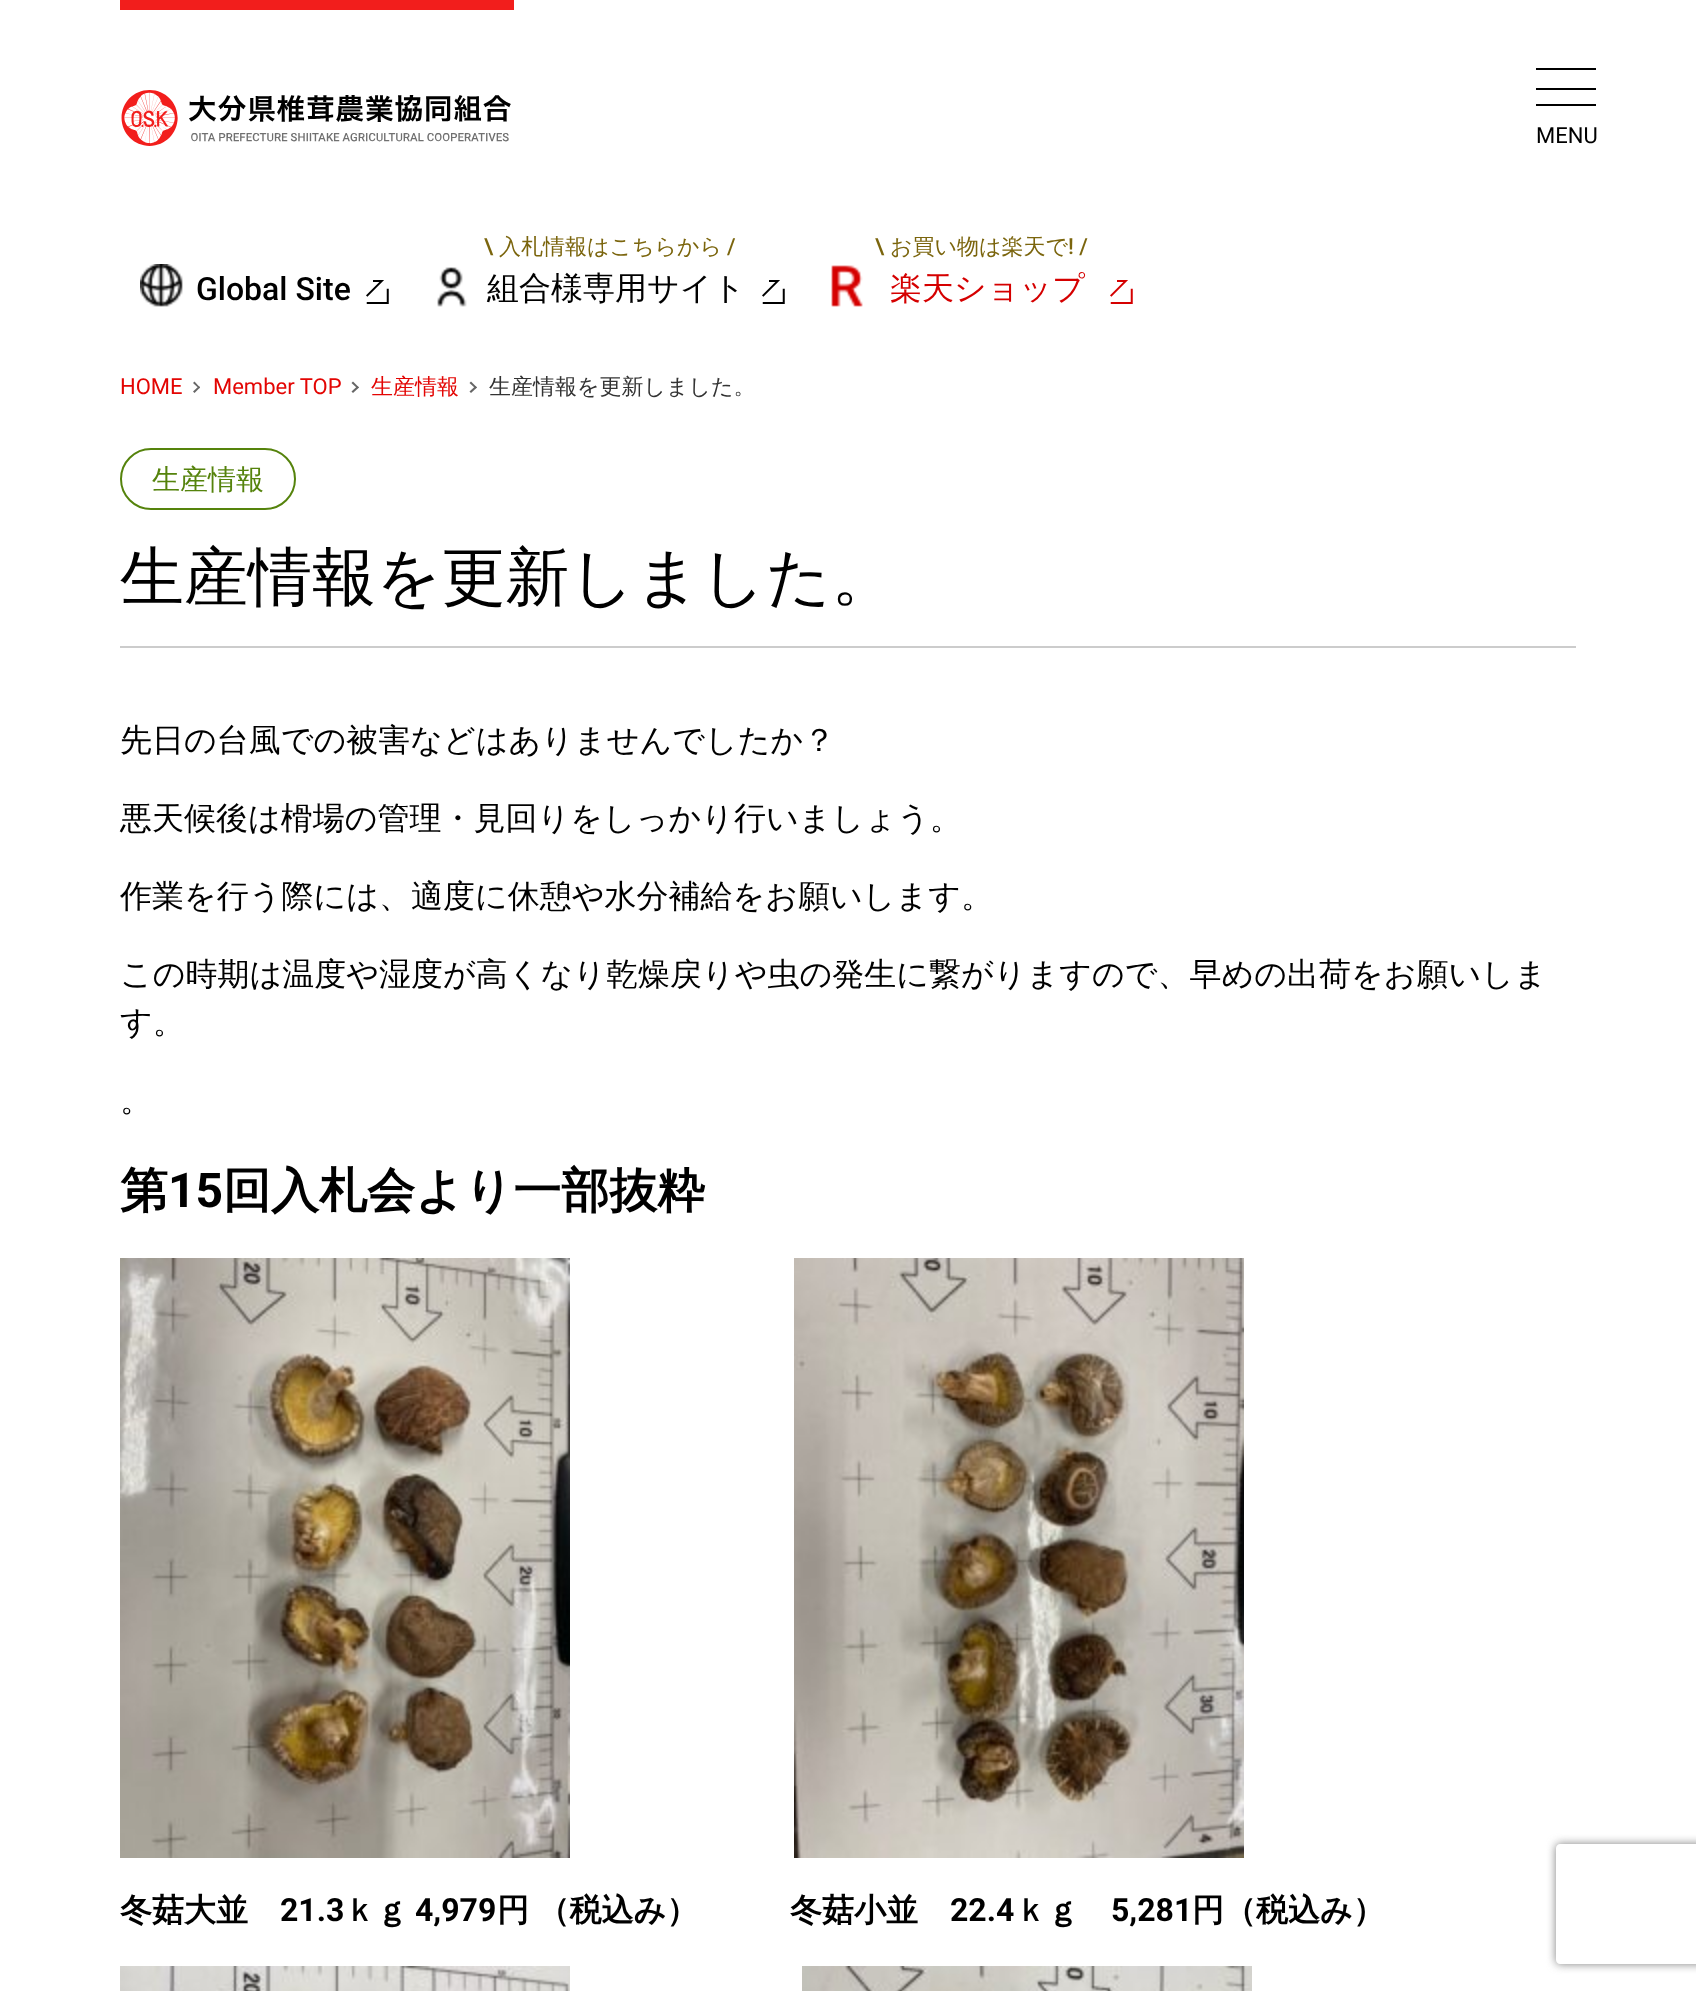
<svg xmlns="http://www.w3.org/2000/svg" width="1696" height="1991">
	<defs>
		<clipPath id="clip1"><path d="M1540 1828H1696V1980H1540ZM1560 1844H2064C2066 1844 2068 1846 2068 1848V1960C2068 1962 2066 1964 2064 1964H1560C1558 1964 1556 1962 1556 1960V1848C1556 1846 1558 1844 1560 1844Z" clip-rule="evenodd" /></clipPath>
	</defs>
	<rect width="100%" height="100%" fill="#FFFFFF" />
	<rect x="120" y="0" width="394" height="10" fill="#F21E1C" />
	<image x="121" y="90" width="390" height="56" href="assets/img1.png" />
	<rect x="1536" y="68" width="60" height="2" fill="#000000" />
	<rect x="1536" y="88" width="60" height="2" fill="#000000" />
	<rect x="1536" y="104" width="60" height="2" fill="#000000" />
	<text x="1536" y="143" font-family="Roboto" font-size="22" fill="#000000">MENU</text>
	<image x="140" y="264" width="43" height="43" href="assets/img2.png" />
	<text x="196" y="300" font-family="Roboto" font-size="32" font-weight="500" fill="#000000">Global Site</text>
	<image x="366" y="280" width="23" height="24" href="assets/img3.png" />
	<text x="484" y="254" font-family="Roboto" font-size="22" font-weight="500" fill="#7B650D">\</text>
	<text x="499" y="254" font-family="WenQuanYi Zen Hei" font-size="22" font-weight="500" fill="#7B650D">入札情報はこちらから</text>
	<text x="727" y="254" font-family="Roboto" font-size="22" font-weight="500" fill="#7B650D">/</text>
	<image x="437" y="267" width="30" height="40" href="assets/img4.png" />
	<text x="487" y="299" font-family="WenQuanYi Zen Hei" font-size="32" font-weight="500" fill="#000000">組合様専用サイト</text>
	<image x="762" y="280" width="23" height="24" href="assets/img3.png" />
	<text x="875" y="254" font-family="Roboto" font-size="22" font-weight="500" fill="#7B650D">\</text>
	<text x="890" y="254" font-family="WenQuanYi Zen Hei" font-size="22" font-weight="500" fill="#7B650D">お買い物は楽天で</text>
	<text x="1068" y="254" font-family="Roboto" font-size="22" font-weight="500" fill="#7B650D">! /</text>
	<image x="831" y="265" width="32" height="42" href="assets/img5.png" />
	<text x="890" y="299" font-family="WenQuanYi Zen Hei" font-size="32" font-weight="500" fill="#D50000">楽天ショップ</text>
	<image x="1110" y="280" width="23" height="24" href="assets/img6.png" />
	<text x="120" y="394" font-family="Roboto" font-size="22" fill="#E30503">HOME</text>
	<path d="M194.5 381.5L200 387.5L199 388.5L193 383Z" fill="#666666" />
	<path d="M199 386L200 387.5L194.5 393L193 391.5Z" fill="#666666" />
	<text x="213" y="394" font-family="Roboto" font-size="22" fill="#E30503">Member TOP</text>
	<path d="M353 381.5L359 387.5L357.5 388.5L351.5 383Z" fill="#666666" />
	<path d="M357.5 386L359 387.5L353 393L351.5 391.5Z" fill="#666666" />
	<text x="371" y="394" font-family="WenQuanYi Zen Hei" font-size="22" font-weight="500" fill="#E30503">生産情報</text>
	<path d="M471 381.5L477 387.5L475.5 388.5L469.5 383Z" fill="#666666" />
	<path d="M475.5 386L477 387.5L471 393L469.5 391.5Z" fill="#666666" />
	<text x="489" y="394" font-family="WenQuanYi Zen Hei" font-size="22" font-weight="500" fill="#333333">生産情報を更新しました。</text>
	<rect x="120" y="646" width="1456" height="2" fill="#CCCCCC" />
	<rect x="121" y="449" width="174" height="60" rx="30" fill="none" stroke="#55830C" stroke-width="2" />
	<text x="152" y="489" font-family="WenQuanYi Zen Hei" font-size="28" font-weight="500" fill="#55830C">生産情報</text>
	<text x="120" y="599" font-family="WenQuanYi Zen Hei" font-size="64" font-weight="500" fill="#000000">生産情報を更新しました。</text>
	<g font-family="WenQuanYi Zen Hei" font-size="32" font-weight="500" fill="#000000">
		<text x="120" y="751">先日の台風での被害などはありませんでしたか？</text>
		<text x="120" y="829">悪天候後は榾場の管理・見回りをしっかり行いましょう。</text>
		<text x="120" y="907">作業を行う際には、適度に休憩や水分補給をお願いします。</text>
		<text x="120" y="985">この時期は温度や湿度が高くなり乾燥戻りや虫の発生に繋がりますので、早めの出荷をお願いしま</text>
		<text x="120" y="1033">す。</text>
		<text x="120" y="1111">。</text>
	</g>
	<text x="120" y="1207" font-family="WenQuanYi Zen Hei" font-size="48" font-weight="700" fill="#000000">第</text>
	<text x="168" y="1207" font-family="Roboto" font-size="48" font-weight="700" fill="#000000">15</text>
	<text x="223" y="1207" font-family="WenQuanYi Zen Hei" font-size="48" font-weight="700" fill="#000000">回入札会より一部抜粋</text>
	<image x="120" y="1258" width="450" height="600" href="assets/img7.png" />
	<image x="794" y="1258" width="450" height="600" href="assets/img8.png" />
	<text x="120" y="1921" font-family="WenQuanYi Zen Hei" font-size="32" font-weight="700" fill="#000000">冬菇大並</text>
	<text x="280" y="1921" font-family="Roboto" font-size="32" font-weight="700" fill="#000000">21.3</text>
	<text x="344" y="1921" font-family="WenQuanYi Zen Hei" font-size="32" font-weight="700" fill="#000000">ｋｇ</text>
	<text x="415" y="1921" font-family="Roboto" font-size="32" font-weight="700" fill="#000000">4,979</text>
	<g font-family="WenQuanYi Zen Hei" font-size="32" font-weight="700" fill="#000000">
		<text x="497" y="1921" word-spacing="-1">円 （税込み）</text>
		<text x="790" y="1921">冬菇小並</text>
	</g>
	<text x="950" y="1921" font-family="Roboto" font-size="32" font-weight="700" fill="#000000">22.4</text>
	<text x="1015" y="1921" font-family="WenQuanYi Zen Hei" font-size="32" font-weight="700" fill="#000000">ｋｇ</text>
	<text x="1111" y="1921" font-family="Roboto" font-size="32" font-weight="700" fill="#000000">5,281</text>
	<text x="1192" y="1921" font-family="WenQuanYi Zen Hei" font-size="32" font-weight="700" fill="#000000">円（税込み）</text>
	<image x="120" y="1966" width="450" height="25" href="assets/img9.png" />
	<image x="802" y="1966" width="450" height="25" href="assets/img10.png" />
	<g clip-path="url(#clip1)">
		<rect x="1556" y="1844" width="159" height="120" rx="4" fill="#808080" filter="blur(5px)" />
	</g>
</svg>
